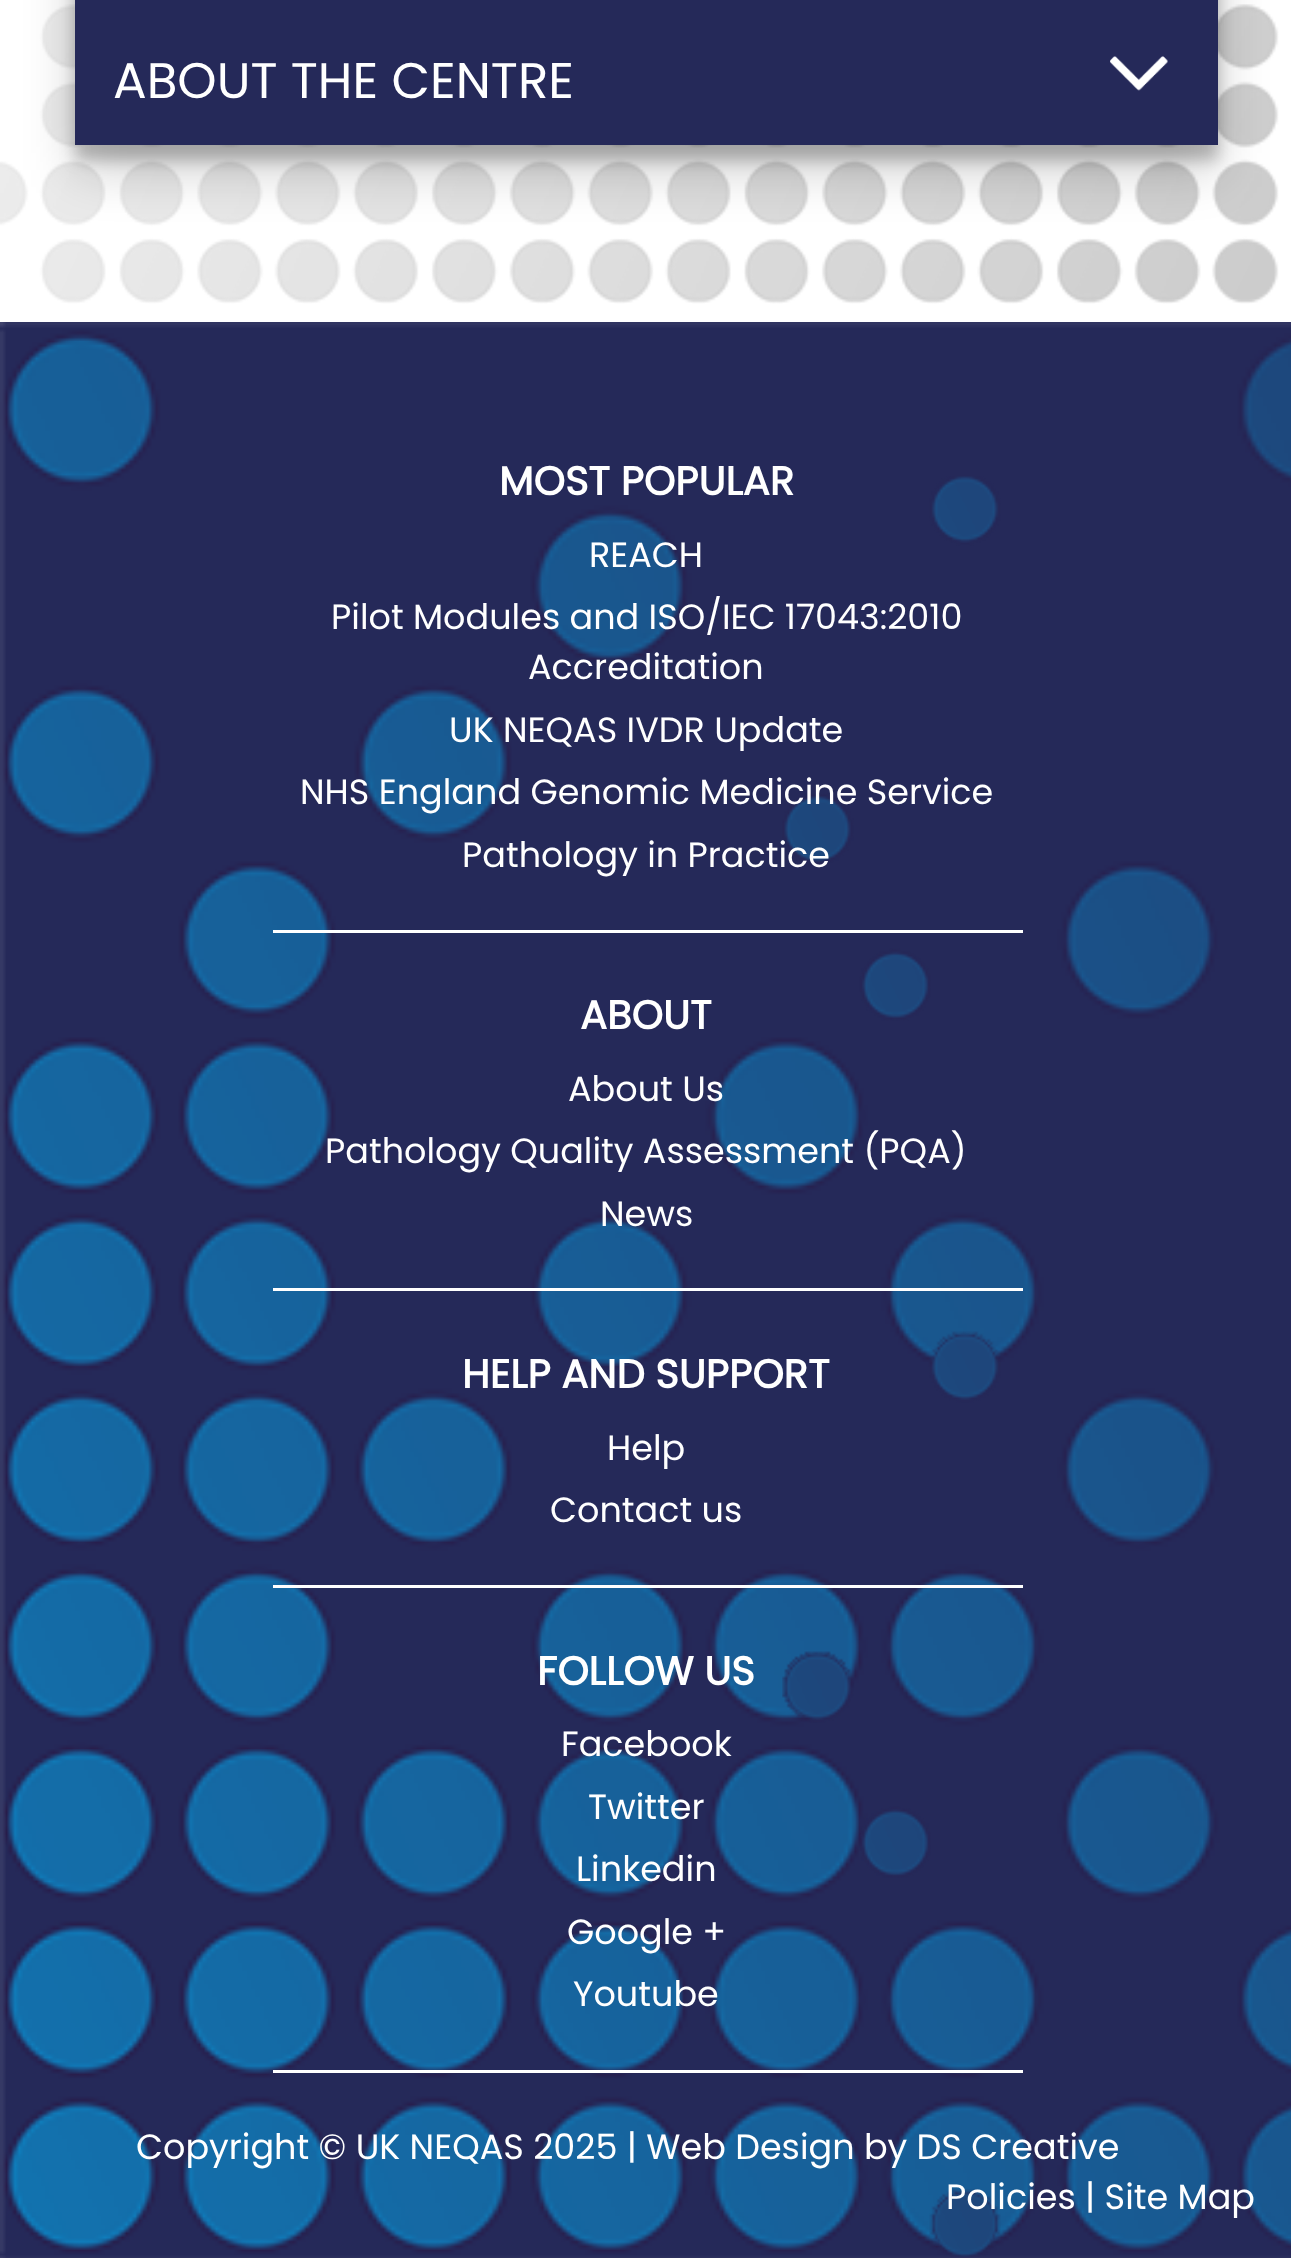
<svg xmlns="http://www.w3.org/2000/svg" width="1291" height="2258">
	<rect width="100%" height="100%" fill="#FFFFFF" />
	<image x="0" y="4" width="1279" height="300" href="assets/img1.png" />
	<rect x="75" y="-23" width="1143" height="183" fill="#000000" fill-opacity="0.23" filter="blur(7.5px)" />
	<rect x="75" y="-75" width="1143" height="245" fill="#000000" fill-opacity="0.19" filter="blur(25px)" />
	<rect x="75" y="0" width="1143" height="145" fill="#252959" />
	<image x="1110" y="56" width="58" height="35" href="assets/img2.png" />
	<text x="113" y="98" font-family="Poppins" font-size="50" fill="#FFFFFF">ABOUT THE CENTRE</text>
	<image x="0" y="322" width="1291" height="1936" href="assets/img3.png" />
	<image x="782" y="476" width="219" height="1781" href="assets/img4.png" />
	<text x="499" y="495" font-family="Poppins" font-size="40" font-weight="700" fill="#FFFFFF">MOST POPULAR</text>
	<rect x="273" y="930" width="750" height="3" fill="#FFFFFF" />
	<g font-family="Poppins" font-size="35" fill="#FFFFFF">
		<text x="589" y="567">REACH</text>
		<text x="331" y="629">Pilot Modules and ISO/IEC 17043:2010</text>
		<text x="528" y="679">Accreditation</text>
		<text x="449" y="742">UK NEQAS IVDR Update</text>
		<text x="300" y="804">NHS England Genomic Medicine Service</text>
		<text x="462" y="867">Pathology in Practice</text>
	</g>
	<text x="580" y="1029" font-family="Poppins" font-size="40" font-weight="700" fill="#FFFFFF">ABOUT</text>
	<rect x="273" y="1288" width="750" height="3" fill="#FFFFFF" />
	<g font-family="Poppins" font-size="35" fill="#FFFFFF">
		<text x="568" y="1101">About Us</text>
		<text x="325" y="1163">Pathology Quality Assessment (PQA)</text>
		<text x="600" y="1226">News</text>
	</g>
	<text x="462" y="1388" font-family="Poppins" font-size="40" font-weight="700" fill="#FFFFFF">HELP AND SUPPORT</text>
	<rect x="273" y="1585" width="750" height="3" fill="#FFFFFF" />
	<g font-family="Poppins" font-size="35" fill="#FFFFFF">
		<text x="607" y="1460">Help</text>
		<text x="550" y="1522">Contact us</text>
	</g>
	<text x="537" y="1685" font-family="Poppins" font-size="40" font-weight="700" fill="#FFFFFF">FOLLOW US</text>
	<rect x="273" y="2070" width="750" height="3" fill="#FFFFFF" />
	<g font-family="Poppins" font-size="35" fill="#FFFFFF">
		<text x="561" y="1756">Facebook</text>
		<text x="588" y="1819">Twitter</text>
		<text x="576" y="1881">Linkedin</text>
		<text x="567" y="1944">Google +</text>
		<text x="573" y="2006">Youtube</text>
		<text x="136" y="2159">Copyright © UK NEQAS 2025 | Web Design by DS Creative</text>
		<text x="946" y="2209">Policies | Site Map</text>
	</g>
</svg>
